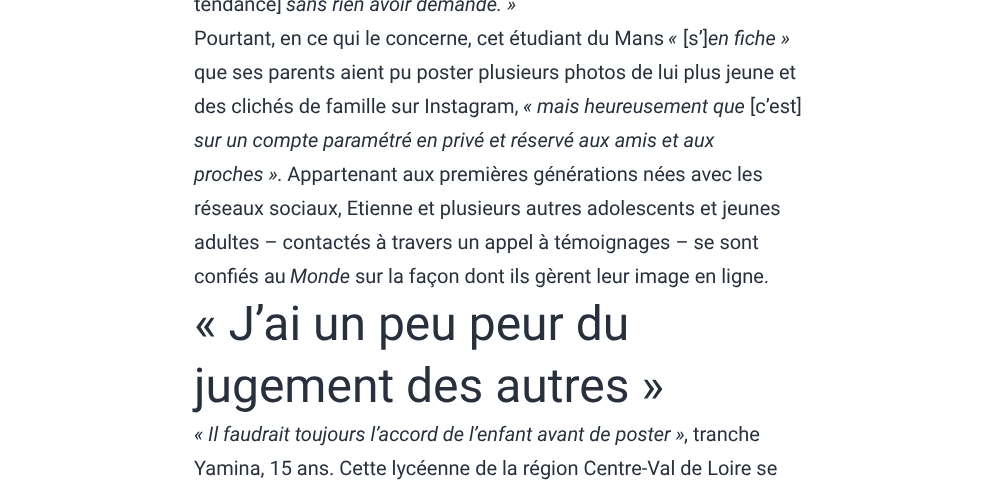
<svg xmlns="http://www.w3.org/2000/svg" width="997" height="492">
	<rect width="100%" height="100%" fill="#FFFFFF" />
	<text x="194" y="11" font-family="Roboto" font-size="20" fill="#28303D">tendance]</text>
	<text x="286" y="11" font-family="Roboto" font-size="20" font-style="italic" fill="#28303D">sans rien avoir demandé. »</text>
	<text x="194" y="45" font-family="Roboto" font-size="20" fill="#28303D">Pourtant, en ce qui le concerne, cet étudiant du Mans</text>
	<text x="668" y="45" font-family="Roboto" font-size="20" font-style="italic" fill="#28303D">«</text>
	<text x="683" y="45" font-family="Roboto" font-size="20" fill="#28303D">[s’]</text>
	<text x="708" y="45" font-family="Roboto" font-size="20" font-style="italic" fill="#28303D">en fiche »</text>
	<g font-family="Roboto" font-size="20" fill="#28303D">
		<text x="194" y="79">que ses parents aient pu poster plusieurs photos de lui plus jeune et</text>
		<text x="194" y="113">des clichés de famille sur Instagram,</text>
	</g>
	<text x="523" y="113" font-family="Roboto" font-size="20" font-style="italic" fill="#28303D">« mais heureusement que</text>
	<text x="750" y="113" font-family="Roboto" font-size="20" fill="#28303D">[c’est]</text>
	<g font-family="Roboto" font-size="20" font-style="italic" fill="#28303D">
		<text x="194" y="147">sur un compte paramétré en privé et réservé aux amis et aux</text>
		<text x="194" y="181">proches »</text>
	</g>
	<g font-family="Roboto" font-size="20" fill="#28303D">
		<text x="277" y="181">. Appartenant aux premières générations nées avec les</text>
		<text x="194" y="215">réseaux sociaux, Etienne et plusieurs autres adolescents et jeunes</text>
		<text x="194" y="249">adultes – contactés à travers un appel à témoignages – se sont</text>
		<text x="194" y="283">confiés au</text>
	</g>
	<text x="290" y="283" font-family="Roboto" font-size="20" font-style="italic" fill="#28303D">Monde</text>
	<text x="355" y="283" font-family="Roboto" font-size="20" fill="#28303D">sur la façon dont ils gèrent leur image en ligne.</text>
	<g font-family="Roboto" font-size="48" fill="#28303D">
		<text x="194" y="340">« J’ai un peu peur du</text>
		<text x="194" y="402">jugement des autres »</text>
	</g>
	<text x="194" y="441" font-family="Roboto" font-size="20" font-style="italic" fill="#28303D">« Il faudrait toujours l’accord de l’enfant avant de poster »</text>
	<g font-family="Roboto" font-size="20" fill="#28303D">
		<text x="684" y="441">, tranche</text>
		<text x="194" y="475">Yamina, 15 ans. Cette lycéenne de la région Centre-Val de Loire se</text>
	</g>
</svg>
